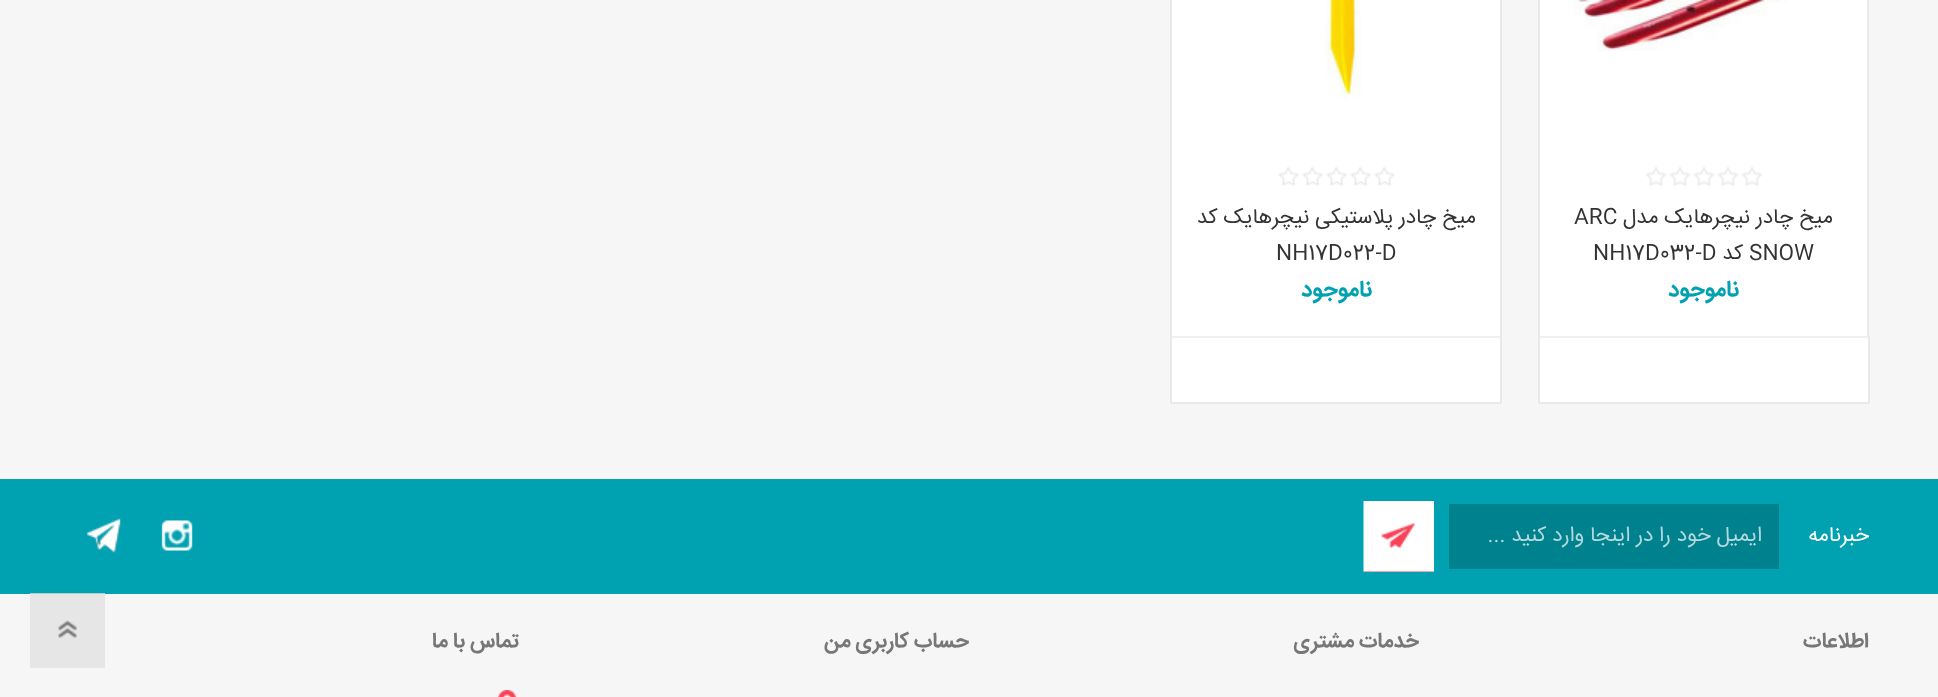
<svg xmlns="http://www.w3.org/2000/svg" width="1938" height="697">
	<rect width="100%" height="100%" fill="#F6F6F6" />
	<rect x="30" y="594" width="75" height="74" fill="#E6E6E6" />
	<rect x="1540" y="0" width="327" height="336" fill="#FFFFFF" />
	<rect x="1539" y="-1" width="329" height="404" fill="none" stroke="#E9E9E9" stroke-width="2" />
	<image x="1573" y="0" width="216" height="51" href="assets/img1.png" />
	<image x="1645" y="166" width="118" height="20" href="assets/img2.png" />
	<g font-family="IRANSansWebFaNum" font-size="21" direction="rtl" fill="#333333">
		<text x="1833" y="223">میخ چادر</text>
		<text x="1750" y="223">نیچرهایک مدل</text>
	</g>
	<g font-family="IRANSansWebFaNum" font-size="21" fill="#333333">
		<text x="1574" y="223">ARC</text>
		<text x="1749" y="259">SNOW</text>
	</g>
	<text x="1743" y="259" font-family="IRANSansWebFaNum" font-size="21" direction="rtl" fill="#333333">کد</text>
	<text x="1593" y="259" font-family="IRANSansWebFaNum" font-size="21" fill="#333333">NH17D032-D</text>
	<text x="1739" y="296" font-family="IRANSansWebFaNum" font-size="22.5" font-weight="700" direction="rtl" fill="#00A1B1">ناموجود</text>
	<rect x="1540" y="338" width="328" height="64" fill="#FFFFFF" />
	<rect x="1538" y="336" width="331" height="2" fill="#F0F0F0" />
	<rect x="1868" y="336" width="2" height="68" fill="#E9E9E9" />
	<rect x="1538" y="336" width="2" height="2" fill="#E9E9E9" />
	<rect x="1172" y="0" width="328" height="336" fill="#FFFFFF" />
	<rect x="1171" y="-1" width="330" height="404" fill="none" stroke="#E9E9E9" stroke-width="2" />
	<image x="1325" y="0" width="37" height="99" href="assets/img3.png" />
	<image x="1278" y="166" width="117" height="20" href="assets/img4.png" />
	<text x="1476" y="223" font-family="IRANSansWebFaNum" font-size="21" direction="rtl" fill="#333333">میخ چادر پلاستیکی نیچرهایک کد</text>
	<text x="1276" y="259" font-family="IRANSansWebFaNum" font-size="21" fill="#333333">NH17D022-D</text>
	<text x="1372" y="296" font-family="IRANSansWebFaNum" font-size="22.5" font-weight="700" direction="rtl" fill="#00A1B1">ناموجود</text>
	<rect x="1172" y="338" width="328" height="64" fill="#FFFFFF" />
	<rect x="1170" y="336" width="332" height="2" fill="#F0F0F0" />
	<rect x="1500" y="336" width="2" height="2" fill="#E9E9E9" />
	<rect x="1170" y="336" width="2" height="2" fill="#E9E9E9" />
	<rect x="0" y="479" width="1938" height="115" fill="#00A1B1" />
	<rect x="30" y="593" width="75" height="1" fill="#A9D1D5" />
	<text x="1869" y="541" font-family="IRANSansWebFaNum" font-size="21" direction="rtl" fill="#FFFFFF">خبرنامه</text>
	<rect x="1449" y="504" width="330" height="65" fill="#00818E" />
	<text x="1762" y="541" font-family="IRANSansWebFaNum" font-size="21" direction="rtl" fill="#B3D9DD">ایمیل خود را در اینجا وارد کنید ...</text>
	<rect x="1364" y="523" width="70" height="49" fill="#F74258" />
	<image x="1363" y="501" width="71" height="71" href="assets/img5.png" />
	<image x="161" y="520" width="32" height="31" href="assets/img6.png" />
	<image x="86" y="518" width="35" height="35" href="assets/img7.png" />
	<g font-family="IRANSansWebFaNum" font-size="21" font-weight="700" direction="rtl" fill="#777777">
		<text x="1869" y="647">اطلاعات</text>
		<text x="1419" y="647">خدمات مشتری</text>
		<text x="969" y="647">حساب کاربری من</text>
		<text x="519" y="647">تماس با ما</text>
	</g>
	<rect x="495" y="690" width="24" height="7" fill="#F74258" />
	<image x="495" y="690" width="24" height="7" href="assets/img8.png" />
	<image x="58" y="620" width="19" height="18" href="assets/img9.png" />
</svg>
